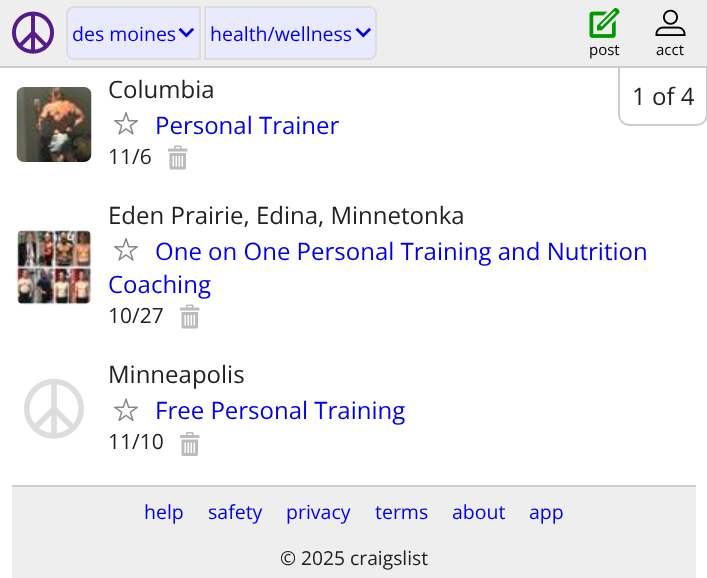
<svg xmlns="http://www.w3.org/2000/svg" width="707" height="578">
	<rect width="100%" height="100%" fill="#FFFFFF" />
	<rect x="0" y="0" width="707" height="66" fill="#EEEEEE" />
	<rect x="0" y="66" width="707" height="2" fill="#CCCCCC" />
	<image x="12" y="11" width="42" height="43" href="assets/img1.png" />
	<path d="M74 7H200V59H74C70 59 67 56 67 52V14C67 10 70 7 74 7Z" fill="#EAEAFF" stroke="#DDDDDD" stroke-width="2" />
	<text x="72" y="41" font-family="Open Sans" font-size="19.5" fill="#0000EE">des moines</text>
	<image x="178" y="27" width="16" height="11" href="assets/img2.png" />
	<path d="M205 7H369C373 7 376 10 376 14V52C376 56 373 59 369 59H205Z" fill="#EAEAFF" stroke="#DDDDDD" stroke-width="2" />
	<text x="210" y="41" font-family="Open Sans" font-size="19.5" fill="#0000EE">health/wellness</text>
	<image x="355" y="27" width="16" height="11" href="assets/img2.png" />
	<image x="589" y="7" width="31" height="31" href="assets/img3.png" />
	<text x="589" y="55" font-family="Open Sans" font-size="15" fill="#000000">post</text>
	<image x="655" y="9" width="31" height="27" href="assets/img4.png" />
	<text x="656" y="55" font-family="Open Sans" font-size="15" fill="#000000">acct</text>
	<image x="16" y="87" width="76" height="75" href="assets/img5.png" />
	<text x="108" y="98" font-family="Open Sans" font-size="24" fill="#222222">Columbia</text>
	<image x="114" y="112" width="24" height="23" href="assets/img6.png" />
	<text x="155" y="134" font-family="Open Sans" font-size="24" fill="#0000EE">Personal Trainer</text>
	<text x="108" y="164" font-family="Open Sans" font-size="21" fill="#222222">11/6</text>
	<image x="168" y="145" width="20" height="25" href="assets/img7.png" />
	<image x="16" y="229" width="76" height="76" href="assets/img8.png" />
	<text x="108" y="224" font-family="Open Sans" font-size="24" fill="#222222">Eden Prairie, Edina, Minnetonka</text>
	<image x="114" y="238" width="24" height="23" href="assets/img6.png" />
	<g font-family="Open Sans" font-size="24" fill="#0000EE">
		<text x="155" y="260">One on One Personal Training and Nutrition</text>
		<text x="108" y="293">Coaching</text>
	</g>
	<text x="108" y="323" font-family="Open Sans" font-size="21" fill="#222222">10/27</text>
	<image x="180" y="304" width="20" height="25" href="assets/img7.png" />
	<image x="24" y="378" width="60" height="61" href="assets/img9.png" />
	<text x="108" y="383" font-family="Open Sans" font-size="24" fill="#222222">Minneapolis</text>
	<image x="114" y="398" width="24" height="24" href="assets/img10.png" />
	<text x="155" y="419" font-family="Open Sans" font-size="24" fill="#0000EE">Free Personal Training</text>
	<text x="108" y="449" font-family="Open Sans" font-size="21" fill="#222222">11/10</text>
	<image x="180" y="432" width="20" height="24" href="assets/img11.png" />
	<rect x="12" y="487" width="684" height="91" fill="#EEEEEE" />
	<rect x="12" y="485" width="684" height="2" fill="#CCCCCC" />
	<g font-family="Open Sans" font-size="19.5" fill="#0000EE">
		<text x="144" y="519">help</text>
		<text x="208" y="519">safety</text>
		<text x="286" y="519">privacy</text>
		<text x="375" y="519">terms</text>
		<text x="452" y="519">about</text>
		<text x="529" y="519">app</text>
	</g>
	<text x="280" y="565" font-family="Open Sans" font-size="19.25" fill="#222222">© 2025 craigslist</text>
	<path d="M618 68H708V114C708 121 703 126 696 126H630C623 126 618 121 618 114ZM620 68H706V114C706 120 702 124 696 124H630C624 124 620 120 620 114Z" fill="#CCCCCC" fill-rule="evenodd" />
	<text x="632" y="105" font-family="Open Sans" font-size="24" fill="#222222">1 of 4</text>
</svg>
